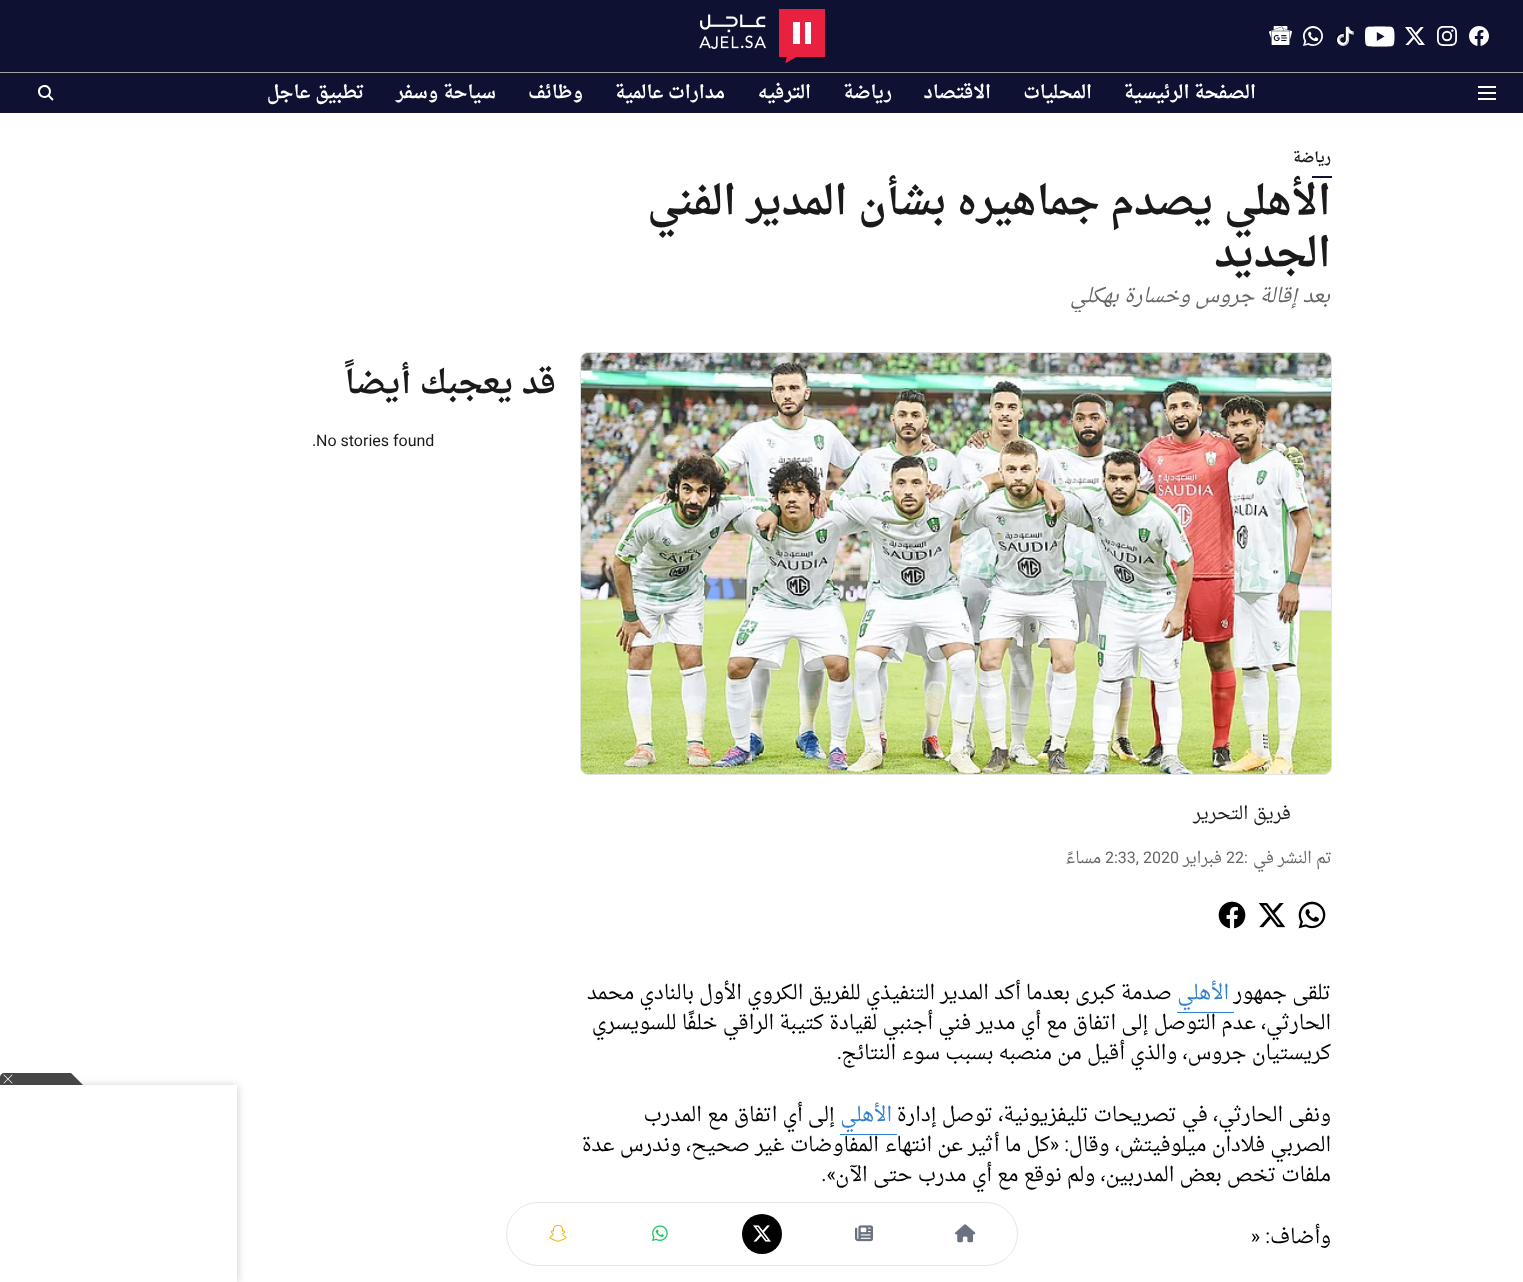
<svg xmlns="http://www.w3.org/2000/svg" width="1523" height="1282">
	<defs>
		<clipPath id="clip1"><rect x="580" y="282" width="752" height="30" /></clipPath>
	</defs>
	<rect width="100%" height="100%" fill="#FFFFFF" />
	<rect x="0" y="0" width="1523" height="72" fill="#0E1131" />
	<rect x="0" y="72" width="1523" height="1" fill="#A4A4A4" />
	<image x="1469" y="26" width="20" height="20" href="assets/img1.png" />
	<image x="1437" y="26" width="20" height="20" href="assets/img2.png" />
	<image x="1405" y="27" width="20" height="18" href="assets/img3.png" />
	<image x="1365" y="26" width="30" height="21" href="assets/img4.png" />
	<image x="1336" y="26" width="18" height="20" href="assets/img5.png" />
	<image x="1303" y="26" width="20" height="20" href="assets/img6.png" />
	<image x="1269" y="26" width="23" height="19" href="assets/img7.png" />
	<image x="699" y="9" width="126" height="55" href="assets/img8.png" />
	<rect x="0" y="73" width="1523" height="40" fill="#0E1131" />
	<image x="1478" y="86" width="18" height="14" href="assets/img9.png" />
	<g font-family="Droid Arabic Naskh" font-size="18" font-weight="700" direction="rtl" fill="#FFFFFF">
		<text x="1256" y="98">الصفحة الرئيسية</text>
		<text x="1092" y="98">المحليات</text>
		<text x="991" y="98">الاقتصاد</text>
		<text x="892" y="98">رياضة</text>
		<text x="811" y="98">الترفيه</text>
		<text x="725" y="98">مدارات عالمية</text>
		<text x="583" y="98">وظائف</text>
		<text x="496" y="98">سياحة وسفر</text>
		<text x="364" y="98">تطبيق عاجل</text>
	</g>
	<image x="37" y="85" width="17" height="16" href="assets/img10.png" />
	<text x="1331" y="162" font-family="Droid Arabic Naskh" font-size="14" font-weight="700" direction="rtl" fill="#1A1A1A">رياضة</text>
	<rect x="1312" y="176" width="20" height="2" fill="#0E1131" />
	<g font-family="Droid Arabic Naskh" font-size="40" font-weight="700" direction="rtl" fill="#1A1A1A">
		<text x="1331" y="214">الأهلي يصدم جماهيره بشأن المدير الفني</text>
		<text x="1331" y="266">الجديد</text>
	</g>
	<g clip-path="url(#clip1)">
		<text x="1330" y="302" font-family="Droid Arabic Naskh" font-size="20" font-style="italic" direction="rtl" fill="#666666">بعد إقالة جروس وخسارة بهكلي</text>
	</g>
	<rect x="580.5" y="352.5" width="751" height="422" rx="7.5" fill="none" stroke="#E2E2E2" />
	<image x="581" y="353" width="750" height="421" href="assets/img11.png" />
	<text x="556" y="393" font-family="Droid Arabic Naskh" font-size="32" font-weight="700" direction="rtl" fill="#1A1A1A">قد يعجبك أيضاً</text>
	<g font-family="Roboto" font-size="16" fill="#1A1A1A">
		<text x="316" y="446">No stories found</text>
		<text x="312" y="446">.</text>
	</g>
	<text x="1291" y="819" font-family="Droid Arabic Naskh" font-size="18" direction="rtl" fill="#1A1A1A">فريق التحرير</text>
	<text x="1332" y="863" font-family="Droid Arabic Naskh" font-size="16" direction="rtl" fill="#666666">تم النشر في</text>
	<g font-family="Roboto" font-size="16" fill="#666666">
		<text x="1244" y="863">:</text>
		<text x="1226" y="863">22</text>
	</g>
	<text x="1222" y="863" font-family="Droid Arabic Naskh" font-size="16" direction="rtl" fill="#666666">فبراير</text>
	<text x="1105" y="863" font-family="Roboto" font-size="16" fill="#666666">2:33, 2020</text>
	<text x="1101" y="863" font-family="Droid Arabic Naskh" font-size="16" direction="rtl" fill="#666666">مساءً</text>
	<image x="1298" y="901" width="28" height="28" href="assets/img12.png" />
	<image x="1258" y="903" width="28" height="25" href="assets/img13.png" />
	<image x="1218" y="901" width="28" height="28" href="assets/img14.png" />
	<text x="1331" y="999" font-family="Droid Arabic Naskh" font-size="20" direction="rtl" fill="#000000">تلقى جمهور</text>
	<text x="1229" y="999" font-family="Droid Arabic Naskh" font-size="20" direction="rtl" fill="#2F81CD">الأهلي</text>
	<rect x="1177" y="1012" width="57" height="1" fill="#2F81CD" />
	<g font-family="Droid Arabic Naskh" font-size="20" direction="rtl" fill="#000000">
		<text x="1172" y="999">صدمة كبرى بعدما أكد المدير التنفيذي للفريق الكروي الأول بالنادي محمد</text>
		<text x="1331" y="1029">الحارثي، عدم التوصل إلى اتفاق مع أي مدير فني أجنبي لقيادة كتيبة الراقي خلفًا للسويسري</text>
		<text x="1331" y="1059">كريستيان جروس، والذي أقيل من منصبه بسبب سوء النتائج</text>
	</g>
	<text x="842" y="1059" font-family="Roboto" font-size="20" direction="rtl" fill="#000000">.</text>
	<text x="1331" y="1121" font-family="Droid Arabic Naskh" font-size="20" direction="rtl" fill="#000000">ونفى الحارثي، في تصريحات تليفزيونية، توصل إدارة</text>
	<text x="892" y="1121" font-family="Droid Arabic Naskh" font-size="20" direction="rtl" fill="#2F81CD">الأهلي</text>
	<rect x="840" y="1134" width="57" height="1" fill="#2F81CD" />
	<g font-family="Droid Arabic Naskh" font-size="20" direction="rtl" fill="#000000">
		<text x="835" y="1121">إلى أي اتفاق مع المدرب</text>
		<text x="1331" y="1151">الصربي فلادان ميلوفيتش، وقال</text>
	</g>
	<g font-family="Roboto" font-size="20" direction="rtl" fill="#000000">
		<text x="1069" y="1151">:</text>
		<text x="1059" y="1151">«</text>
	</g>
	<g font-family="Droid Arabic Naskh" font-size="20" direction="rtl" fill="#000000">
		<text x="1050" y="1151">كل ما أثير عن انتهاء المفاوضات غير صحيح، وندرس عدة</text>
		<text x="1331" y="1181">ملفات تخص بعض المدربين، ولم نوقع مع أي مدرب حتى الآن</text>
	</g>
	<text x="836" y="1181" font-family="Roboto" font-size="20" direction="rtl" fill="#000000">».</text>
	<text x="1331" y="1243" font-family="Droid Arabic Naskh" font-size="20" direction="rtl" fill="#000000">وأضاف</text>
	<g font-family="Roboto" font-size="20" direction="rtl" fill="#000000">
		<text x="1270" y="1243">:</text>
		<text x="1260" y="1243">«</text>
	</g>
	<rect x="1" y="1086" width="236" height="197" fill="#C7C7C7" filter="blur(4px)" />
	<rect x="0" y="1085" width="237" height="197" fill="#FFFFFF" />
	<path d="M4 1073H71V1085H0V1077C0 1075 2 1073 4 1073Z" fill="#464646" />
	<path d="M71 1073L83 1085H71Z" fill="#464646" />
	<path d="M4 1074.5L12.5 1083L12 1083.5L3.5 1075Z" fill="#FFFFFF" />
	<path d="M3.5 1083L12 1074.5L12.5 1075L4 1083.5Z" fill="#FFFFFF" />
	<rect x="506.5" y="1202.5" width="511" height="63" rx="31.5" fill="none" stroke="#E5E7EB" />
	<image x="955" y="1224" width="21" height="19" href="assets/img15.png" />
	<image x="855" y="1225" width="18" height="17" href="assets/img16.png" />
	<circle cx="762" cy="1234" r="20" fill="#000000" />
	<image x="753" y="1225" width="18" height="17" href="assets/img17.png" />
	<image x="652" y="1225" width="16" height="17" href="assets/img18.png" />
	<image x="549" y="1224" width="18" height="18" href="assets/img19.png" />
</svg>
